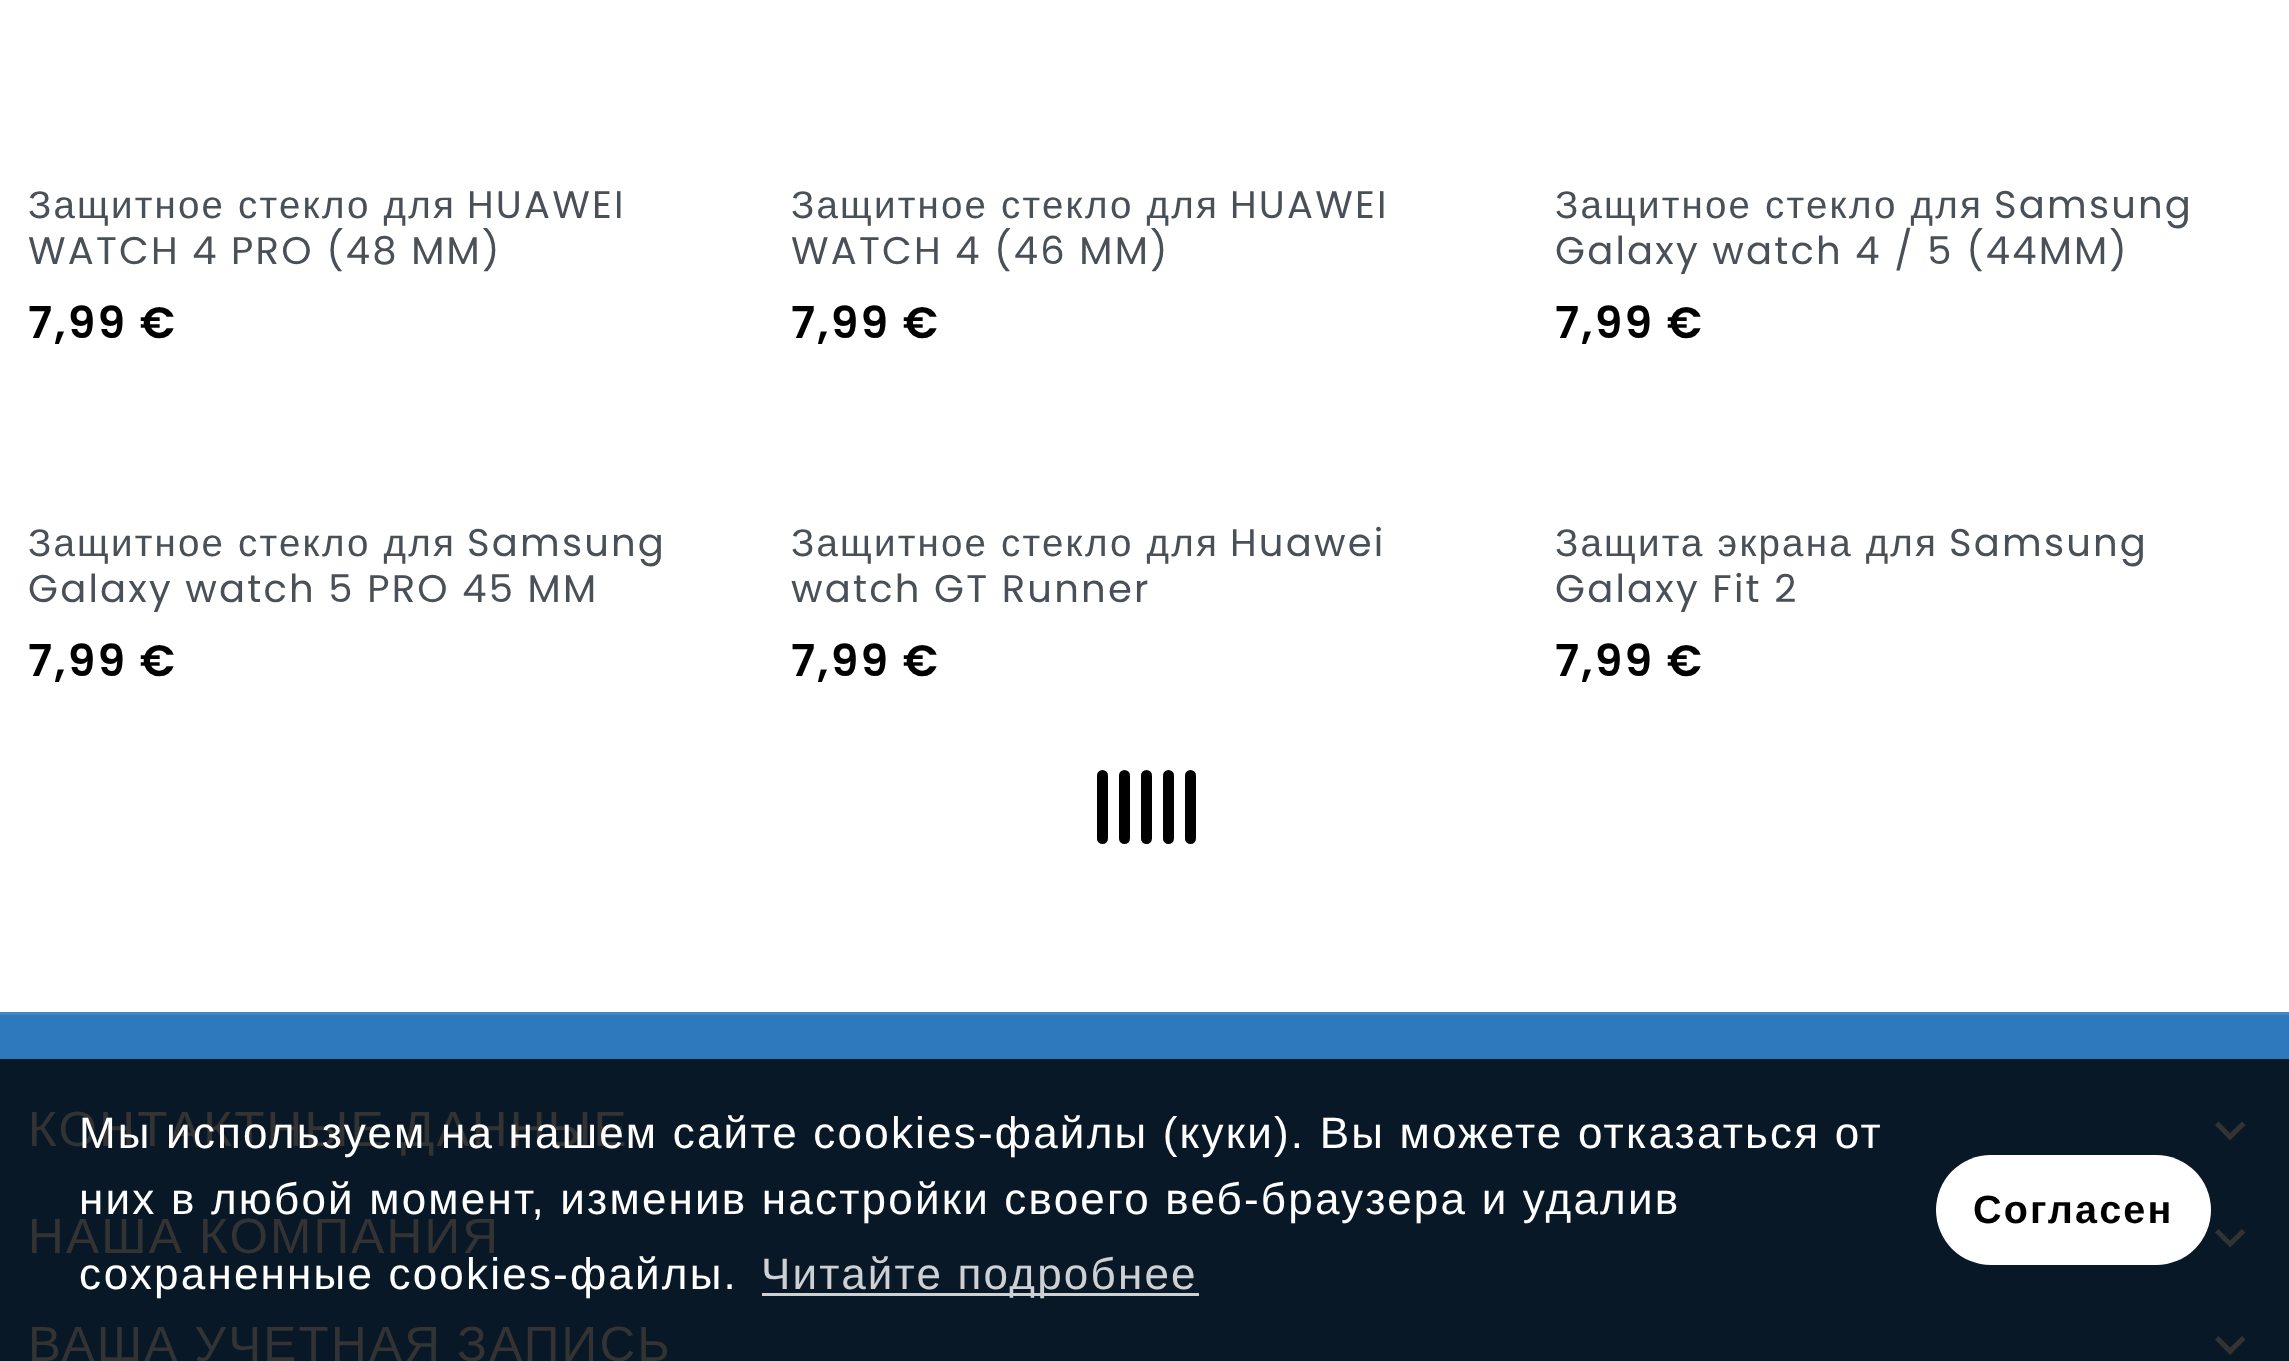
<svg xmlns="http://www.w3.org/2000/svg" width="2289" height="1361">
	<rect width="100%" height="100%" fill="#FFFFFF" />
	<text x="28" y="218" font-family="Liberation Sans" font-size="38.5" letter-spacing="2.2" fill="#495057">Защитное стекло для</text>
	<g font-family="Poppins" font-size="38.5" letter-spacing="2.2" fill="#495057">
		<text x="467" y="218">HUAWEI</text>
		<text x="28" y="264">WATCH 4 PRO (48 MM)</text>
	</g>
	<text x="28" y="338" font-family="Poppins" font-size="44" font-weight="600" letter-spacing="2.2" fill="#000000">7,99 €</text>
	<text x="791" y="218" font-family="Liberation Sans" font-size="38.5" letter-spacing="2.2" fill="#495057">Защитное стекло для</text>
	<g font-family="Poppins" font-size="38.5" letter-spacing="2.2" fill="#495057">
		<text x="1230" y="218">HUAWEI</text>
		<text x="791" y="264">WATCH 4 (46 MM)</text>
	</g>
	<text x="791" y="338" font-family="Poppins" font-size="44" font-weight="600" letter-spacing="2.2" fill="#000000">7,99 €</text>
	<text x="1555" y="218" font-family="Liberation Sans" font-size="38.5" letter-spacing="2.2" fill="#495057">Защитное стекло для</text>
	<g font-family="Poppins" font-size="38.5" letter-spacing="2.2" fill="#495057">
		<text x="1994" y="218">Samsung</text>
		<text x="1555" y="264">Galaxy watch 4 / 5 (44MM)</text>
	</g>
	<text x="1555" y="338" font-family="Poppins" font-size="44" font-weight="600" letter-spacing="2.2" fill="#000000">7,99 €</text>
	<text x="28" y="556" font-family="Liberation Sans" font-size="38.5" letter-spacing="2.2" fill="#495057">Защитное стекло для</text>
	<g font-family="Poppins" font-size="38.5" letter-spacing="2.2" fill="#495057">
		<text x="467" y="556">Samsung</text>
		<text x="28" y="602">Galaxy watch 5 PRO 45 MM</text>
	</g>
	<text x="28" y="676" font-family="Poppins" font-size="44" font-weight="600" letter-spacing="2.2" fill="#000000">7,99 €</text>
	<text x="791" y="556" font-family="Liberation Sans" font-size="38.5" letter-spacing="2.2" fill="#495057">Защитное стекло для</text>
	<g font-family="Poppins" font-size="38.5" letter-spacing="2.2" fill="#495057">
		<text x="1230" y="556">Huawei</text>
		<text x="791" y="602">watch GT Runner</text>
	</g>
	<text x="791" y="676" font-family="Poppins" font-size="44" font-weight="600" letter-spacing="2.2" fill="#000000">7,99 €</text>
	<text x="1555" y="556" font-family="Liberation Sans" font-size="38.5" letter-spacing="2.2" fill="#495057">Защита экрана для</text>
	<g font-family="Poppins" font-size="38.5" letter-spacing="2.2" fill="#495057">
		<text x="1949" y="556">Samsung</text>
		<text x="1555" y="602">Galaxy Fit 2</text>
	</g>
	<text x="1555" y="676" font-family="Poppins" font-size="44" font-weight="600" letter-spacing="2.2" fill="#000000">7,99 €</text>
	<rect x="1097" y="770" width="11" height="74" rx="5.5" fill="#000000" />
	<rect x="1119" y="770" width="11" height="74" rx="5.5" fill="#000000" />
	<rect x="1141" y="770" width="11" height="74" rx="5.5" fill="#000000" />
	<rect x="1163" y="770" width="11" height="74" rx="5.5" fill="#000000" />
	<rect x="1185" y="770" width="11" height="74" rx="5.5" fill="#000000" />
	<rect x="0" y="1015" width="2289" height="44" fill="#2E79BD" />
	<rect x="0" y="1059" width="2289" height="302" fill="#091826" />
	<rect x="0" y="1012" width="2289" height="3" fill="#4386C4" />
	<text x="28" y="1146" word-spacing="-1" font-family="Liberation Sans" font-size="49.5" letter-spacing="2.2" fill="#333333">КОНТАКТНЫЕ ДАННЫЕ</text>
	<path d="M2218.5 1121.5L2230 1133L2242 1121.5L2245.5 1125L2230 1140.5L2215 1125Z" fill="#333333" />
	<text x="28" y="1253" word-spacing="-1" font-family="Liberation Sans" font-size="49.5" letter-spacing="2.2" fill="#333333">НАША КОМПАНИЯ</text>
	<path d="M2218.5 1229L2230 1240.5L2242 1229L2245.5 1232.5L2230 1247.5L2215 1232.5Z" fill="#333333" />
	<text x="28" y="1361" word-spacing="-1" font-family="Liberation Sans" font-size="49.5" letter-spacing="2.2" fill="#333333">ВАША УЧЕТНАЯ ЗАПИСЬ</text>
	<path d="M2218.5 1336L2230 1347.5L2242 1336L2245.5 1339.5L2230 1355L2215 1339.5Z" fill="#333333" />
	<g font-family="Liberation Sans" font-size="44" letter-spacing="2.2" fill="#FFFFFF">
		<text x="79" y="1148">Мы используем на нашем сайте cookies-файлы (куки). Вы можете отказаться от</text>
		<text x="79" y="1214">них в любой момент, изменив настройки своего веб-браузера и удалив</text>
		<text x="79" y="1289">сохраненные cookies-файлы.</text>
	</g>
	<rect x="762" y="1293" width="437" height="3" fill="#CED1D4" />
	<text x="761" y="1289" font-family="Liberation Sans" font-size="44" letter-spacing="2.2" fill="#CED1D4">Читайте подробнее</text>
	<rect x="1936" y="1155" width="275" height="110" rx="55" fill="#FFFFFF" />
	<text x="1973" y="1223" font-family="Liberation Sans" font-size="39.5" font-weight="700" letter-spacing="2.2" fill="#000000">Согласен</text>
</svg>
